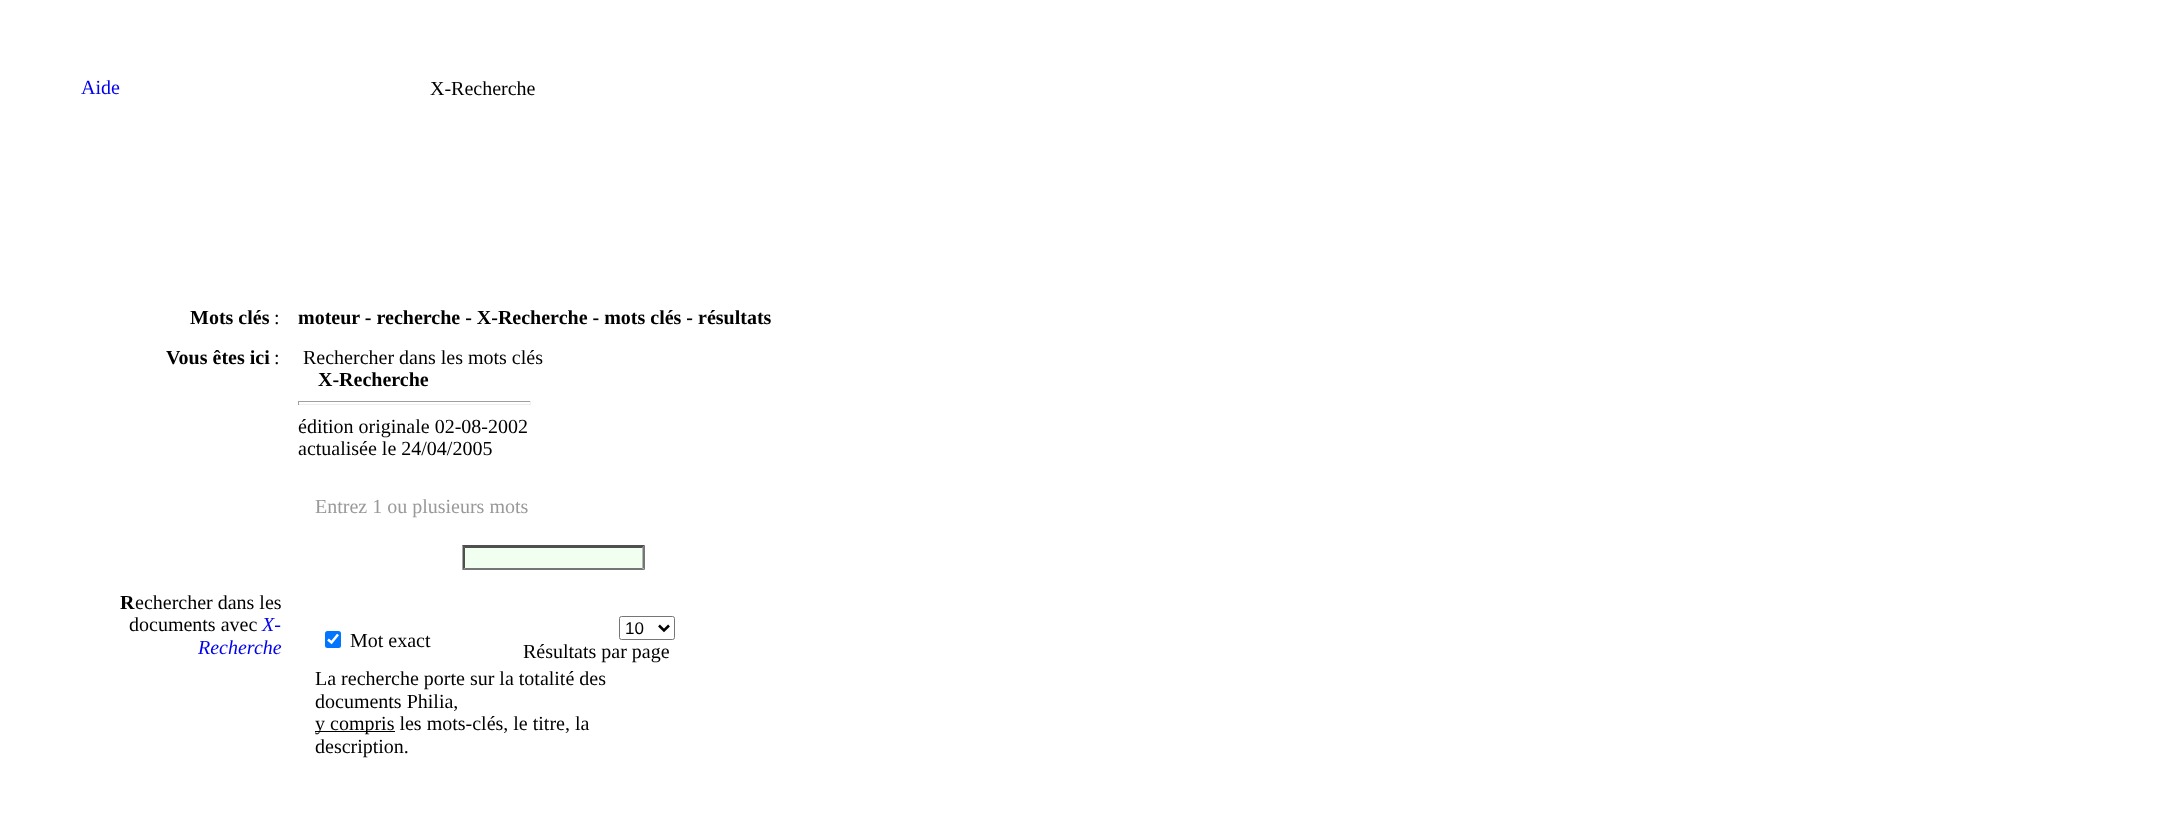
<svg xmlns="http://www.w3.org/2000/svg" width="2182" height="816">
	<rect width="100%" height="100%" fill="#FFFFFF" />
	<text x="81" y="94" font-family="Liberation Serif" font-size="20" fill="#0000EE">Aide</text>
	<text x="430" y="95" font-family="Liberation Serif" font-size="20" fill="#000000">X-Recherche</text>
	<text x="190" y="324" font-family="Liberation Serif" font-size="20" font-weight="700" fill="#000000">Mots clés</text>
	<text x="274" y="324" font-family="Liberation Serif" font-size="20" fill="#000000">:</text>
	<g font-family="Liberation Serif" font-size="20" font-weight="700" fill="#000000">
		<text x="298" y="324">moteur - recherche - X-Recherche - mots clés - résultats</text>
		<text x="166" y="364">Vous êtes ici</text>
	</g>
	<g font-family="Liberation Serif" font-size="20" fill="#000000">
		<text x="274" y="364">:</text>
		<text x="303" y="364">Rechercher dans les mots clés</text>
	</g>
	<text x="318" y="386" font-family="Liberation Serif" font-size="20" font-weight="700" fill="#000000">X-Recherche</text>
	<rect x="298" y="401" width="233" height="1" fill="#9F9F9F" />
	<rect x="530" y="401" width="1" height="4" fill="#EEEEEE" />
	<rect x="298" y="404" width="233" height="1" fill="#EEEEEE" />
	<rect x="298" y="401" width="1" height="4" fill="#9F9F9F" />
	<g font-family="Liberation Serif" font-size="20" fill="#000000">
		<text x="298" y="433">édition originale 02-08-2002</text>
		<text x="298" y="455">actualisée le 24/04/2005</text>
	</g>
	<text x="120" y="609" font-family="Liberation Serif" font-size="20" font-weight="700" fill="#000000">R</text>
	<g font-family="Liberation Serif" font-size="20" fill="#000000">
		<text x="135" y="609">echercher dans les</text>
		<text x="129" y="631">documents avec</text>
	</g>
	<g font-family="Liberation Serif" font-size="20" font-style="italic" fill="#0000EE">
		<text x="262" y="631">X-</text>
		<text x="198" y="654">Recherche</text>
	</g>
	<text x="315" y="513" font-family="Liberation Serif" font-size="20" fill="#999999">Entrez 1 ou plusieurs mots</text>
	<rect x="463" y="545" width="182" height="25" fill="#F0FFF0" />
	<path d="M462 545H645L642 548H465Z" fill="#4F4F4F" />
	<path d="M645 545V570L642.5 567.5V547.5Z" fill="#767676" />
	<path d="M645 570H462L465 568H642Z" fill="#767676" />
	<path d="M462.5 570V545L465 547.5V567.5Z" fill="#4F4F4F" />
	<rect x="325" y="631" width="16" height="17" rx="2.5" fill="#0075FF" />
	<path d="M328 639.5L331.5 642.5L338 634.5" fill="none" stroke="#FFFFFF" stroke-width="2.6" />
	<text x="350" y="647" font-family="Liberation Serif" font-size="20" fill="#000000">Mot exact</text>
	<rect x="619.5" y="616.5" width="55" height="23" rx="2" fill="none" stroke="#767676" />
	<path d="M659 625.5L664 630.5L669 625.5" fill="none" stroke="#000000" stroke-width="2.5" />
	<text x="625" y="634" font-family="Liberation Sans" font-size="17" fill="#000000">10</text>
	<g font-family="Liberation Serif" font-size="20" fill="#000000">
		<text x="523" y="658">Résultats par page</text>
		<text x="315" y="685">La recherche porte sur la totalité des</text>
		<text x="315" y="708">documents Philia,</text>
	</g>
	<rect x="315" y="731" width="80" height="1" fill="#000000" />
	<g font-family="Liberation Serif" font-size="20" fill="#000000">
		<text x="315" y="730">y compris les mots-clés, le titre, la</text>
		<text x="315" y="753">description.</text>
	</g>
</svg>
